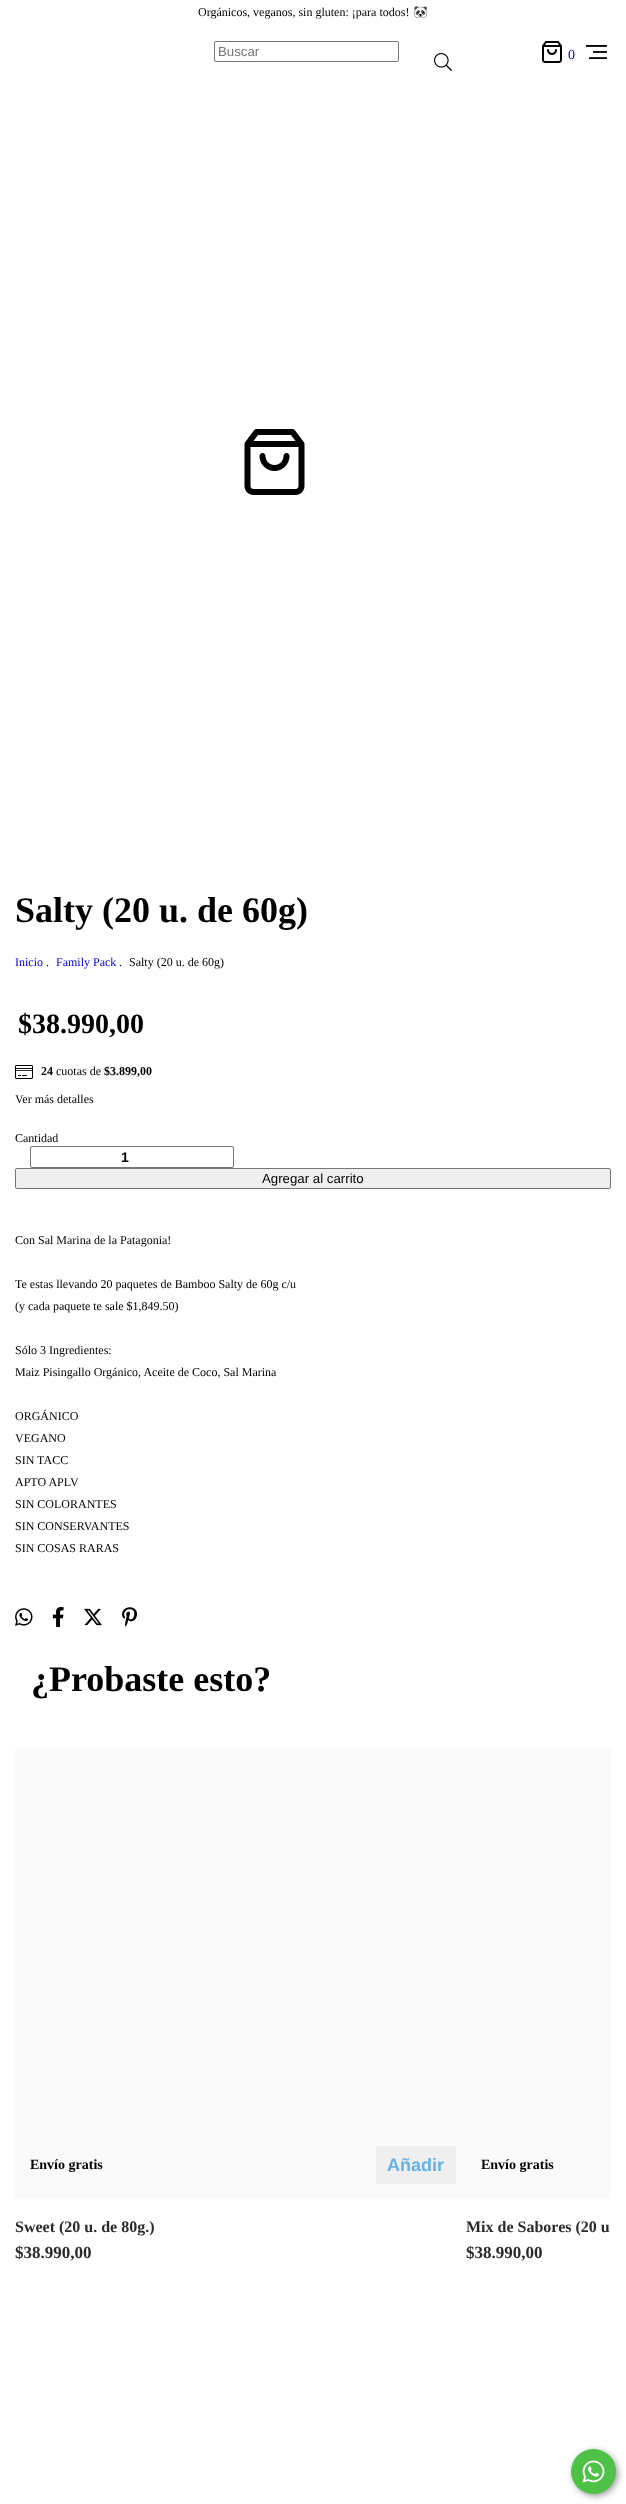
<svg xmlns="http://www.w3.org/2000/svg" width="626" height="2504">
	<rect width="100%" height="100%" fill="#FFFFFF" />
	<text x="198" y="16" font-family="Liberation Serif" font-size="12" fill="#000000">Orgánicos, veganos, sin gluten: ¡para todos!</text>
	<text x="413" y="16" font-family="Noto Color Emoji" font-size="12" fill="#000000">🐼</text>
	<rect x="214.5" y="41.5" width="184" height="20" rx="1.5" fill="none" stroke="#767676" />
	<text x="218" y="56" font-family="Liberation Sans" font-size="13.25" fill="#757575">Buscar</text>
	<image x="434" y="53" width="18" height="18" href="assets/img1.png" />
	<image x="542" y="41" width="20" height="22" href="assets/img2.png" />
	<text x="568" y="59" font-family="Liberation Serif" font-size="14" fill="#0000EE">0</text>
	<image x="586" y="45" width="21" height="14" href="assets/img3.png" />
	<image x="244" y="429" width="61" height="66" href="assets/img4.png" />
	<text x="15" y="922" font-family="Liberation Serif" font-size="36" font-weight="700" fill="#000000">Salty (20 u. de 60g)</text>
	<text x="15" y="966" font-family="Liberation Serif" font-size="12" fill="#0000EE">Inicio</text>
	<text x="46" y="966" font-family="Liberation Serif" font-size="12" fill="#000000">.</text>
	<text x="56" y="966" font-family="Liberation Serif" font-size="12" fill="#0000EE">Family Pack</text>
	<g font-family="Liberation Serif" font-size="12" fill="#000000">
		<text x="119" y="966">.</text>
		<text x="129" y="966">Salty (20 u. de 60g)</text>
	</g>
	<text x="18" y="1033" font-family="Liberation Serif" font-size="28" font-weight="700" fill="#000000">$38.990,00</text>
	<image x="15" y="1065" width="18" height="14" href="assets/img5.png" />
	<text x="41" y="1075" font-family="Liberation Serif" font-size="12" font-weight="700" fill="#000000">24</text>
	<text x="56" y="1075" font-family="Liberation Serif" font-size="12" fill="#000000">cuotas de</text>
	<text x="104" y="1075" font-family="Liberation Serif" font-size="12" font-weight="700" fill="#000000">$3.899,00</text>
	<g font-family="Liberation Serif" font-size="12" fill="#000000">
		<text x="15" y="1103">Ver más detalles</text>
		<text x="15" y="1142">Cantidad</text>
	</g>
	<rect x="30.5" y="1146.5" width="203" height="21" rx="1.5" fill="none" stroke="#767676" />
	<text x="121" y="1162" font-family="Liberation Sans" font-size="14" font-weight="700" fill="#000000">1</text>
	<rect x="15.5" y="1168.5" width="595" height="20" rx="1.5" fill="#EFEFEF" stroke="#767676" />
	<text x="262" y="1183" font-family="Liberation Sans" font-size="13.25" fill="#000000">Agregar al carrito</text>
	<g font-family="Liberation Serif" font-size="12" fill="#000000">
		<text x="15" y="1244">Con Sal Marina de la Patagonia!</text>
		<text x="15" y="1288">Te estas llevando 20 paquetes de Bamboo Salty de 60g c/u</text>
		<text x="15" y="1310">(y cada paquete te sale $1,849.50)</text>
		<text x="15" y="1354">Sólo 3 Ingredientes:</text>
		<text x="15" y="1376">Maiz Pisingallo Orgánico, Aceite de Coco, Sal Marina</text>
		<text x="15" y="1420">ORGÁNICO</text>
		<text x="15" y="1442">VEGANO</text>
		<text x="15" y="1464">SIN TACC</text>
		<text x="15" y="1486">APTO APLV</text>
		<text x="15" y="1508">SIN COLORANTES</text>
		<text x="15" y="1530">SIN CONSERVANTES</text>
		<text x="15" y="1552">SIN COSAS RARAS</text>
	</g>
	<image x="15" y="1608" width="18" height="18" href="assets/img6.png" />
	<image x="52" y="1607" width="12" height="20" href="assets/img7.png" />
	<image x="84" y="1608" width="18" height="18" href="assets/img8.png" />
	<image x="122" y="1607" width="15" height="20" href="assets/img9.png" />
	<text x="31" y="1691" font-family="Liberation Serif" font-size="36" font-weight="700" fill="#000000">¿Probaste esto?</text>
	<rect x="15" y="1748" width="596" height="451" fill="#FAFAFA" />
	<text x="30" y="2169" font-family="Liberation Serif" font-size="14" font-weight="700" fill="#000000">Envío gratis</text>
	<rect x="376" y="2146" width="80" height="38" fill="#EFEFEF" />
	<text x="387" y="2171" font-family="Liberation Sans" font-size="18" font-weight="700" fill="#65B2E8">Añadir</text>
	<text x="15" y="2232" font-family="Liberation Serif" font-size="16" font-weight="700" fill="#2B2A2B">Sweet (20 u. de 80g.)</text>
	<text x="15" y="2258" font-family="Liberation Serif" font-size="17" font-weight="700" fill="#2B2A2B">$38.990,00</text>
	<text x="481" y="2169" font-family="Liberation Serif" font-size="14" font-weight="700" fill="#000000">Envío gratis</text>
	<text x="466" y="2232" font-family="Liberation Serif" font-size="16" font-weight="700" fill="#2B2A2B">Mix de Sabores (20 u</text>
	<text x="466" y="2258" font-family="Liberation Serif" font-size="17" font-weight="700" fill="#2B2A2B">$38.990,00</text>
	<rect x="573" y="2451" width="45" height="45" rx="22.5" fill="#000000" fill-opacity="0.4" filter="blur(3px)" />
	<circle cx="593.5" cy="2471.5" r="22.5" fill="#4DC247" />
	<image x="582" y="2460" width="23" height="23" href="assets/img10.png" />
</svg>
